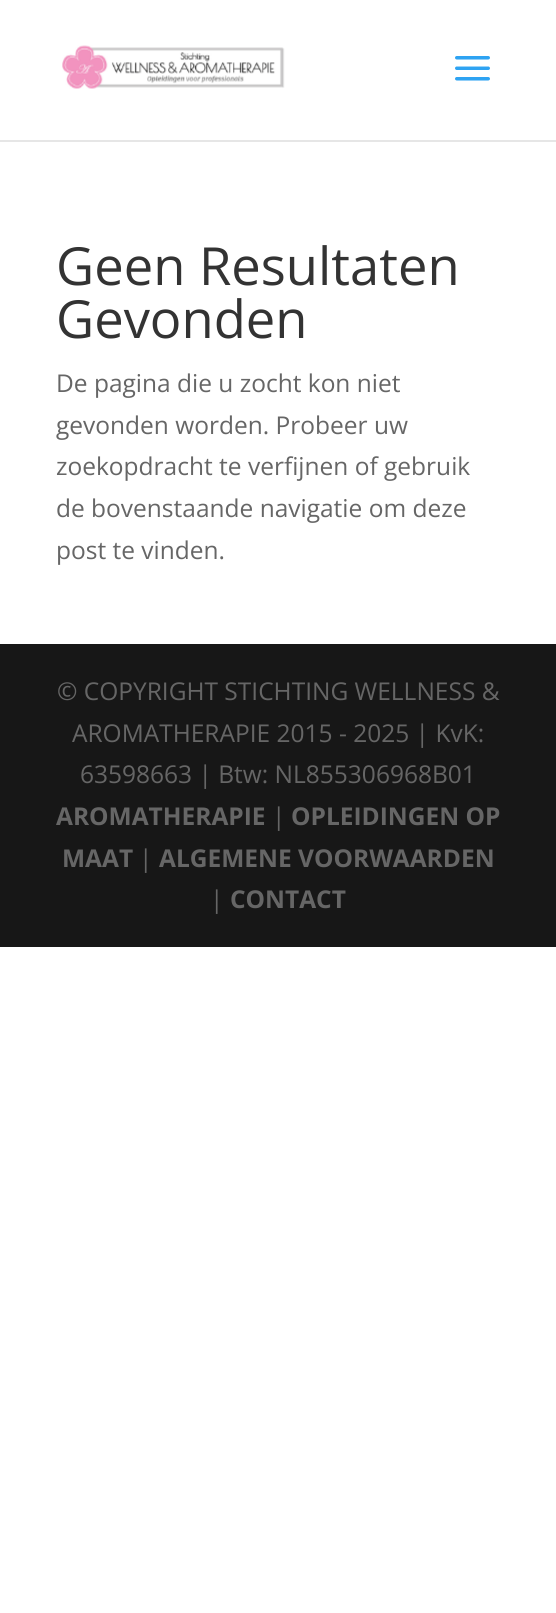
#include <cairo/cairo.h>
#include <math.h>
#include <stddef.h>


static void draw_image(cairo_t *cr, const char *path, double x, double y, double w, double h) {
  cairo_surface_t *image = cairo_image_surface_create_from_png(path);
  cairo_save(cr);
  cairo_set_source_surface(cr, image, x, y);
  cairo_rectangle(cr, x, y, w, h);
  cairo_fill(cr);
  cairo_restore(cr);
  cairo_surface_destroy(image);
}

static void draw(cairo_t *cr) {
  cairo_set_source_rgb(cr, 1, 1, 1);
  cairo_paint(cr);
  cairo_set_source_rgb(cr, 230 / 255.0, 230 / 255.0, 230 / 255.0);
  cairo_new_path(cr);
  cairo_move_to(cr, 0, 140);
  cairo_line_to(cr, 0, 142);
  cairo_line_to(cr, 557, 142);
  cairo_line_to(cr, 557, 2);
  cairo_line_to(cr, 556, 2);
  cairo_line_to(cr, 556, 140);
  cairo_close_path(cr);
  cairo_fill(cr);
  draw_image(cr, "images/1.png", 62, 45, 223, 44);
  draw_image(cr, "images/2.png", 455, 56, 35, 25);
  cairo_set_source_rgb(cr, 23 / 255.0, 23 / 255.0, 23 / 255.0);
  cairo_rectangle(cr, 0, 644, 556, 303);
  cairo_fill(cr);
  cairo_select_font_face(cr, "Open Sans", CAIRO_FONT_SLANT_NORMAL, CAIRO_FONT_WEIGHT_NORMAL);
  cairo_set_font_size(cr, 52.5);
  cairo_set_source_rgb(cr, 51 / 255.0, 51 / 255.0, 51 / 255.0);
  cairo_move_to(cr, 56, 285);
  cairo_show_text(cr, "Geen Resultaten");
  cairo_move_to(cr, 56, 338);
  cairo_show_text(cr, "Gevonden");
  cairo_set_font_size(cr, 24.5);
  cairo_set_source_rgb(cr, 102 / 255.0, 102 / 255.0, 102 / 255.0);
  cairo_move_to(cr, 56, 392);
  cairo_show_text(cr, "De pagina die u zocht kon niet");
  cairo_move_to(cr, 56, 434);
  cairo_show_text(cr, "gevonden worden. Probeer uw");
  cairo_move_to(cr, 56, 475);
  cairo_show_text(cr, "zoekopdracht te verfijnen of gebruik");
  cairo_move_to(cr, 56, 517);
  cairo_show_text(cr, "de bovenstaande navigatie om deze");
  cairo_move_to(cr, 56, 559);
  cairo_show_text(cr, "post te vinden.");
  cairo_move_to(cr, 57, 700);
  cairo_show_text(cr, "© COPYRIGHT STICHTING WELLNESS &");
  cairo_move_to(cr, 72, 742);
  cairo_show_text(cr, "AROMATHERAPIE 2015 - 2025 | KvK:");
  cairo_move_to(cr, 80, 783);
  cairo_show_text(cr, "63598663 | Btw: NL855306968B01");
  cairo_select_font_face(cr, "Open Sans", CAIRO_FONT_SLANT_NORMAL, CAIRO_FONT_WEIGHT_BOLD);
  cairo_move_to(cr, 56, 825);
  cairo_show_text(cr, "AROMATHERAPIE");
  cairo_select_font_face(cr, "Open Sans", CAIRO_FONT_SLANT_NORMAL, CAIRO_FONT_WEIGHT_NORMAL);
  cairo_move_to(cr, 272, 825);
  cairo_show_text(cr, "|");
  cairo_select_font_face(cr, "Open Sans", CAIRO_FONT_SLANT_NORMAL, CAIRO_FONT_WEIGHT_BOLD);
  cairo_move_to(cr, 291, 825);
  cairo_show_text(cr, "OPLEIDINGEN OP");
  cairo_move_to(cr, 62, 867);
  cairo_show_text(cr, "MAAT");
  cairo_select_font_face(cr, "Open Sans", CAIRO_FONT_SLANT_NORMAL, CAIRO_FONT_WEIGHT_NORMAL);
  cairo_move_to(cr, 139, 867);
  cairo_show_text(cr, "|");
  cairo_select_font_face(cr, "Open Sans", CAIRO_FONT_SLANT_NORMAL, CAIRO_FONT_WEIGHT_BOLD);
  cairo_move_to(cr, 159, 867);
  cairo_show_text(cr, "ALGEMENE VOORWAARDEN");
  cairo_select_font_face(cr, "Open Sans", CAIRO_FONT_SLANT_NORMAL, CAIRO_FONT_WEIGHT_NORMAL);
  cairo_move_to(cr, 210, 908);
  cairo_show_text(cr, "|");
  cairo_select_font_face(cr, "Open Sans", CAIRO_FONT_SLANT_NORMAL, CAIRO_FONT_WEIGHT_BOLD);
  cairo_move_to(cr, 230, 908);
  cairo_show_text(cr, "CONTACT");
}

int main(void) {
  cairo_surface_t *surface = cairo_image_surface_create(CAIRO_FORMAT_RGB24, 556, 1613);
  cairo_t *cr = cairo_create(surface);
  cairo_font_options_t *options = cairo_font_options_create();
  cairo_font_options_set_hint_metrics(options, CAIRO_HINT_METRICS_OFF);
  cairo_font_options_set_hint_style(options, CAIRO_HINT_STYLE_NONE);
  cairo_set_font_options(cr, options);
  cairo_set_miter_limit(cr, 4);
  draw(cr);
  cairo_surface_write_to_png(surface, "out.png");
  cairo_font_options_destroy(options);
  cairo_destroy(cr);
  cairo_surface_destroy(surface);
  return 0;
}
